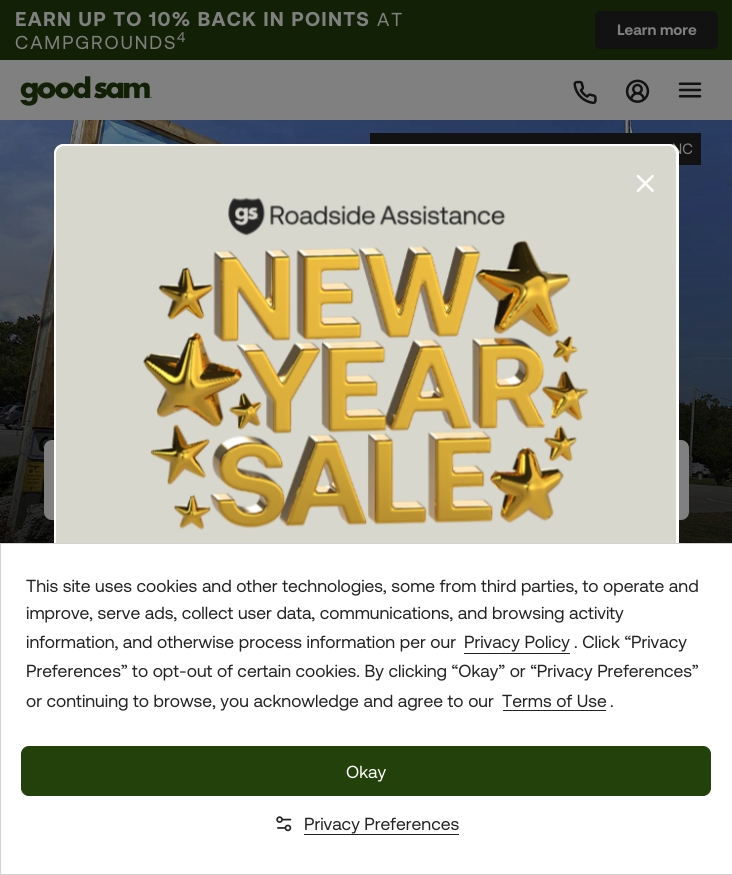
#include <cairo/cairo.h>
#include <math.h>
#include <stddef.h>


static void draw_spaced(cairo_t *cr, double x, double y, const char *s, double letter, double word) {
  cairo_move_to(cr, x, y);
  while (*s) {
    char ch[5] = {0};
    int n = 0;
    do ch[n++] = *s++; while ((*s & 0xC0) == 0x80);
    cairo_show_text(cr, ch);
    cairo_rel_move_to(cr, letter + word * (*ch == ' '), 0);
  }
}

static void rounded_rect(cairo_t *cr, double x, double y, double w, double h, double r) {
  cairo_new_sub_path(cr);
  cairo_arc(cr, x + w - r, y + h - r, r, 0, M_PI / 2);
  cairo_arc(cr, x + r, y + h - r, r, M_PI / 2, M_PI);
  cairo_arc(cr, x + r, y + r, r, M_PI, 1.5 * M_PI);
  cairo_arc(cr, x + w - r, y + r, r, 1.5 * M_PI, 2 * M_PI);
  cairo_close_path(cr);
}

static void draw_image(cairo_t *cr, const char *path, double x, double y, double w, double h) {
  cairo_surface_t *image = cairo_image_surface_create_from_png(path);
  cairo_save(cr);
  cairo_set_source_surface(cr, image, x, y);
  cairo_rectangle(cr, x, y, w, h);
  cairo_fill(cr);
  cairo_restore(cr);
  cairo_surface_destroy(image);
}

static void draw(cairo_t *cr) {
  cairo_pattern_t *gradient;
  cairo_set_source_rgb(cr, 128 / 255.0, 128 / 255.0, 128 / 255.0);
  cairo_paint(cr);
  cairo_set_source_rgb(cr, 18 / 255.0, 33 / 255.0, 5 / 255.0);
  cairo_rectangle(cr, 0, 0, 732, 60);
  cairo_fill(cr);
  cairo_set_source_rgb(cr, 18 / 255.0, 18 / 255.0, 18 / 255.0);
  rounded_rect(cr, 595.5, 11.5, 122, 37, 4.5);
  cairo_fill_preserve(cr);
  cairo_set_line_width(cr, 1);
  cairo_stroke(cr);
  draw_image(cr, "images/1.png", 20, 76, 132, 30);
  draw_image(cr, "images/2.png", 573, 80, 24, 25);
  draw_image(cr, "images/3.png", 625, 79, 25, 24);
  draw_image(cr, "images/4.png", 678, 82, 24, 16);
  draw_image(cr, "images/7.png", 0, 120, 732, 423);
  gradient = cairo_pattern_create_linear(366, 120, 366, 599);
  cairo_pattern_add_color_stop_rgba(gradient, 0, 0, 0, 0, 0);
  cairo_pattern_add_color_stop_rgba(gradient, 1, 0, 0, 0, 0.8);
  cairo_pattern_add_color_stop_rgba(gradient, 1, 0, 0, 0, 0);
  cairo_set_source(cr, gradient);
  cairo_pattern_destroy(gradient);
  cairo_rectangle(cr, 0, 133, 732, 410);
  cairo_fill(cr);
  cairo_set_source_rgb(cr, 18 / 255.0, 18 / 255.0, 18 / 255.0);
  cairo_rectangle(cr, 370, 133, 331, 32);
  cairo_fill(cr);
  cairo_set_source_rgb(cr, 128 / 255.0, 128 / 255.0, 128 / 255.0);
  rounded_rect(cr, 44, 440, 645, 80, 8);
  cairo_fill(cr);
  cairo_select_font_face(cr, "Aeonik", CAIRO_FONT_SLANT_NORMAL, CAIRO_FONT_WEIGHT_BOLD);
  cairo_set_font_size(cr, 20);
  draw_spaced(cr, 15, 26, "EARN UP TO 10% BACK IN POINTS", 1.25, 0);
  cairo_select_font_face(cr, "Aeonik", CAIRO_FONT_SLANT_NORMAL, CAIRO_FONT_WEIGHT_NORMAL);
  cairo_set_font_size(cr, 18.75);
  draw_spaced(cr, 377, 26, "AT", 1.9, 0);
  draw_spaced(cr, 15, 49, "CAMPGROUNDS", 1.9, 0);
  cairo_set_font_size(cr, 14);
  draw_spaced(cr, 177, 42, "4", 1.9, 0);
  cairo_select_font_face(cr, "Aeonik", CAIRO_FONT_SLANT_NORMAL, CAIRO_FONT_WEIGHT_BOLD);
  cairo_set_font_size(cr, 15);
  cairo_move_to(cr, 617, 35);
  cairo_show_text(cr, "Learn more");
  cairo_select_font_face(cr, "Aeonik", CAIRO_FONT_SLANT_NORMAL, CAIRO_FONT_WEIGHT_NORMAL);
  cairo_move_to(cr, 672, 154);
  cairo_show_text(cr, "NC");
  cairo_set_source_rgb(cr, 215 / 255.0, 215 / 255.0, 205 / 255.0);
  cairo_new_path(cr);
  cairo_move_to(cr, 64, 144);
  cairo_line_to(cr, 669, 144);
  cairo_curve_to(cr, 674.5, 144, 679, 148.5, 679, 154);
  cairo_line_to(cr, 679, 553);
  cairo_line_to(cr, 54, 553);
  cairo_line_to(cr, 54, 154);
  cairo_curve_to(cr, 54, 148.5, 58.5, 144, 64, 144);
  cairo_close_path(cr);
  cairo_fill(cr);
  cairo_set_source_rgb(cr, 1, 1, 1);
  cairo_set_fill_rule(cr, CAIRO_FILL_RULE_EVEN_ODD);
  cairo_new_path(cr);
  cairo_move_to(cr, 64, 144);
  cairo_line_to(cr, 669, 144);
  cairo_curve_to(cr, 674, 144, 679, 148, 679, 154);
  cairo_line_to(cr, 679, 552);
  cairo_line_to(cr, 54, 552);
  cairo_line_to(cr, 54, 154);
  cairo_curve_to(cr, 54, 148, 58, 144, 64, 144);
  cairo_close_path(cr);
  cairo_move_to(cr, 64, 146);
  cairo_line_to(cr, 669, 146);
  cairo_curve_to(cr, 673, 146, 676, 150, 676, 154);
  cairo_line_to(cr, 676, 552);
  cairo_line_to(cr, 56, 552);
  cairo_line_to(cr, 56, 154);
  cairo_curve_to(cr, 56, 150, 60, 146, 64, 146);
  cairo_close_path(cr);
  cairo_fill(cr);
  draw_image(cr, "images/5.png", 636, 174, 18, 18);
  draw_image(cr, "images/6.png", 143, 197, 446, 333);
  cairo_rectangle(cr, 0.5, 543.5, 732, 331);
  cairo_fill_preserve(cr);
  cairo_set_source_rgb(cr, 209 / 255.0, 209 / 255.0, 209 / 255.0);
  cairo_stroke(cr);
  cairo_set_font_size(cr, 17.5);
  cairo_set_source_rgb(cr, 35 / 255.0, 35 / 255.0, 35 / 255.0);
  cairo_move_to(cr, 26, 592);
  cairo_show_text(cr, "This site uses cookies and other technologies, some from third parties, to operate and");
  cairo_move_to(cr, 26, 619);
  cairo_show_text(cr, "improve, serve ads, collect user data, communications, and browsing activity");
  cairo_move_to(cr, 26, 648);
  cairo_show_text(cr, "information, and otherwise process information per our");
  cairo_move_to(cr, 464, 648);
  cairo_show_text(cr, "Privacy Policy");
  cairo_rectangle(cr, 464, 653, 106, 1);
  cairo_fill(cr);
  cairo_move_to(cr, 574, 648);
  cairo_show_text(cr, ". Click “Privacy");
  cairo_move_to(cr, 26, 677);
  cairo_show_text(cr, "Preferences” to opt-out of certain cookies. By clicking “Okay” or “Privacy Preferences”");
  cairo_move_to(cr, 26, 707);
  cairo_show_text(cr, "or continuing to browse, you acknowledge and agree to our");
  cairo_move_to(cr, 502, 707);
  cairo_show_text(cr, "Terms of Use");
  cairo_rectangle(cr, 503, 710, 103, 1);
  cairo_fill(cr);
  cairo_move_to(cr, 610, 707);
  cairo_show_text(cr, ".");
  cairo_set_source_rgb(cr, 35 / 255.0, 65 / 255.0, 10 / 255.0);
  rounded_rect(cr, 21.5, 746.5, 689, 49, 7.5);
  cairo_fill_preserve(cr);
  cairo_stroke(cr);
  cairo_set_source_rgb(cr, 1, 1, 1);
  cairo_move_to(cr, 346, 778);
  cairo_show_text(cr, "Okay");
  draw_image(cr, "images/8.png", 276, 816, 16, 16);
  cairo_set_source_rgb(cr, 35 / 255.0, 35 / 255.0, 35 / 255.0);
  cairo_move_to(cr, 304, 830);
  cairo_show_text(cr, "Privacy Preferences");
  cairo_rectangle(cr, 304, 834, 155, 1);
  cairo_fill(cr);
}

int main(void) {
  cairo_surface_t *surface = cairo_image_surface_create(CAIRO_FORMAT_RGB24, 732, 875);
  cairo_t *cr = cairo_create(surface);
  cairo_font_options_t *options = cairo_font_options_create();
  cairo_font_options_set_hint_metrics(options, CAIRO_HINT_METRICS_OFF);
  cairo_font_options_set_hint_style(options, CAIRO_HINT_STYLE_NONE);
  cairo_set_font_options(cr, options);
  cairo_set_miter_limit(cr, 4);
  draw(cr);
  cairo_surface_write_to_png(surface, "out.png");
  cairo_font_options_destroy(options);
  cairo_destroy(cr);
  cairo_surface_destroy(surface);
  return 0;
}
